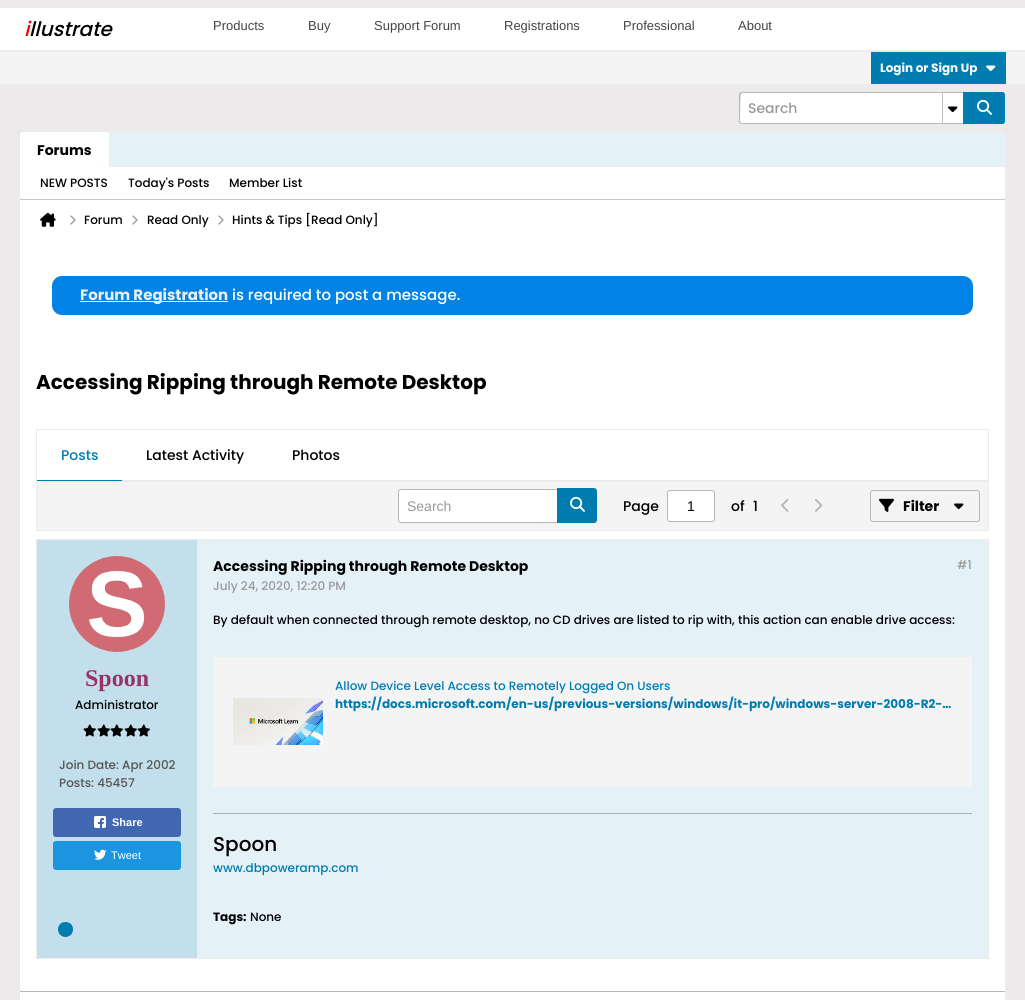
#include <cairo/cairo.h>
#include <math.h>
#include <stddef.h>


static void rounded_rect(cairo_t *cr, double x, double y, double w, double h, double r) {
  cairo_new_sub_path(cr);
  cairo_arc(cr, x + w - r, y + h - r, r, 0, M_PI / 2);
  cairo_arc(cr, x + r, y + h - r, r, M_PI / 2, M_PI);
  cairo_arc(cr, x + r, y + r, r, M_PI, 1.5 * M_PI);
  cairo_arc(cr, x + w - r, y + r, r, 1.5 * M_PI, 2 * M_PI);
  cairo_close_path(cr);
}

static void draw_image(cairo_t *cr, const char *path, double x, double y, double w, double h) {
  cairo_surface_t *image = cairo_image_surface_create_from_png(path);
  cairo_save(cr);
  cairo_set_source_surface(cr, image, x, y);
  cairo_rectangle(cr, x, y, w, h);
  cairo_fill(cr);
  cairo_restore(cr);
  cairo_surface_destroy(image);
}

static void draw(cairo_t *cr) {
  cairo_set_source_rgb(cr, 236 / 255.0, 234 / 255.0, 234 / 255.0);
  cairo_paint(cr);
  cairo_set_source_rgb(cr, 1, 1, 1);
  cairo_rectangle(cr, 0, 8, 1025, 42);
  cairo_fill(cr);
  cairo_set_source_rgb(cr, 245 / 255.0, 244 / 255.0, 244 / 255.0);
  cairo_rectangle(cr, 0, 52, 1025, 32);
  cairo_fill(cr);
  cairo_set_source_rgb(cr, 0, 124 / 255.0, 176 / 255.0);
  cairo_rectangle(cr, 871, 52, 135, 32);
  cairo_fill(cr);
  draw_image(cr, "images/1.png", 986, 65, 10, 7);
  cairo_set_source_rgb(cr, 1, 1, 1);
  cairo_new_path(cr);
  cairo_move_to(cr, 742, 92);
  cairo_line_to(cr, 963, 92);
  cairo_line_to(cr, 963, 124);
  cairo_line_to(cr, 742, 124);
  cairo_curve_to(cr, 740.5, 124, 739, 122.5, 739, 121);
  cairo_line_to(cr, 739, 95);
  cairo_curve_to(cr, 739, 93.5, 740.5, 92, 742, 92);
  cairo_close_path(cr);
  cairo_fill(cr);
  cairo_set_source_rgb(cr, 183 / 255.0, 183 / 255.0, 183 / 255.0);
  cairo_set_fill_rule(cr, CAIRO_FILL_RULE_EVEN_ODD);
  cairo_new_path(cr);
  cairo_move_to(cr, 742, 92);
  cairo_line_to(cr, 963, 92);
  cairo_line_to(cr, 963, 124);
  cairo_line_to(cr, 742, 124);
  cairo_curve_to(cr, 740, 124, 739, 123, 739, 121);
  cairo_line_to(cr, 739, 95);
  cairo_curve_to(cr, 739, 93, 740, 92, 742, 92);
  cairo_close_path(cr);
  cairo_move_to(cr, 742, 93);
  cairo_line_to(cr, 963, 93);
  cairo_line_to(cr, 963, 123);
  cairo_line_to(cr, 741, 123);
  cairo_line_to(cr, 740, 121);
  cairo_curve_to(cr, 740, 119, 740, 94, 741, 94);
  cairo_close_path(cr);
  cairo_fill(cr);
  cairo_set_source_rgb(cr, 189 / 255.0, 189 / 255.0, 189 / 255.0);
  cairo_rectangle(cr, 942, 92, 1, 32);
  cairo_fill(cr);
  draw_image(cr, "images/2.png", 948, 106, 10, 7);
  cairo_set_source_rgb(cr, 0, 124 / 255.0, 176 / 255.0);
  cairo_new_path(cr);
  cairo_move_to(cr, 963.5, 92.5);
  cairo_line_to(cr, 1002, 92.5);
  cairo_curve_to(cr, 1003.5, 92.5, 1004.5, 93.5, 1004.5, 95);
  cairo_line_to(cr, 1004.5, 121);
  cairo_curve_to(cr, 1004.5, 122.5, 1003.5, 123.5, 1002, 123.5);
  cairo_line_to(cr, 963.5, 123.5);
  cairo_close_path(cr);
  cairo_fill_preserve(cr);
  cairo_set_line_width(cr, 1);
  cairo_stroke(cr);
  draw_image(cr, "images/3.png", 977, 99, 15, 16);
  cairo_set_source_rgb(cr, 228 / 255.0, 241 / 255.0, 246 / 255.0);
  cairo_new_path(cr);
  cairo_move_to(cr, 23, 132);
  cairo_line_to(cr, 1002, 132);
  cairo_curve_to(cr, 1003.5, 132, 1005, 133.5, 1005, 135);
  cairo_line_to(cr, 1005, 167);
  cairo_line_to(cr, 20, 167);
  cairo_line_to(cr, 20, 135);
  cairo_curve_to(cr, 20, 133.5, 21.5, 132, 23, 132);
  cairo_close_path(cr);
  cairo_fill(cr);
  cairo_set_source_rgb(cr, 1, 1, 1);
  cairo_new_path(cr);
  cairo_move_to(cr, 23, 132);
  cairo_line_to(cr, 106, 132);
  cairo_curve_to(cr, 107.5, 132, 109, 133.5, 109, 135);
  cairo_line_to(cr, 109, 167);
  cairo_line_to(cr, 20, 167);
  cairo_line_to(cr, 20, 135);
  cairo_curve_to(cr, 20, 133.5, 21.5, 132, 23, 132);
  cairo_close_path(cr);
  cairo_fill(cr);
  cairo_rectangle(cr, 20, 167, 985, 32);
  cairo_fill(cr);
  cairo_set_source_rgb(cr, 199 / 255.0, 199 / 255.0, 200 / 255.0);
  cairo_rectangle(cr, 20, 199, 985, 1);
  cairo_fill(cr);
  cairo_set_source_rgb(cr, 1, 1, 1);
  cairo_rectangle(cr, 20, 200, 985, 791);
  cairo_fill(cr);
  draw_image(cr, "images/4.png", 40, 212, 16, 15);
  draw_image(cr, "images/5.png", 70, 215, 6, 10);
  draw_image(cr, "images/5.png", 132, 215, 6, 10);
  draw_image(cr, "images/5.png", 218, 215, 6, 10);
  cairo_set_source_rgb(cr, 1 / 255.0, 130 / 255.0, 229 / 255.0);
  rounded_rect(cr, 52, 276, 921, 39, 10);
  cairo_fill(cr);
  cairo_set_source_rgb(cr, 238 / 255.0, 238 / 255.0, 238 / 255.0);
  cairo_rectangle(cr, 80, 301, 148, 1);
  cairo_fill(cr);
  cairo_set_source_rgb(cr, 236 / 255.0, 234 / 255.0, 234 / 255.0);
  cairo_rectangle(cr, 36, 429, 953, 1);
  cairo_fill(cr);
  cairo_rectangle(cr, 988, 429, 1, 53);
  cairo_fill(cr);
  cairo_rectangle(cr, 122, 480, 867, 1);
  cairo_fill(cr);
  cairo_rectangle(cr, 36, 429, 1, 53);
  cairo_fill(cr);
  cairo_set_source_rgb(cr, 0, 124 / 255.0, 176 / 255.0);
  cairo_rectangle(cr, 37, 480, 85, 1);
  cairo_fill(cr);
  cairo_set_source_rgb(cr, 245 / 255.0, 244 / 255.0, 244 / 255.0);
  cairo_rectangle(cr, 36.5, 481.5, 952, 49);
  cairo_fill_preserve(cr);
  cairo_set_source_rgb(cr, 236 / 255.0, 234 / 255.0, 234 / 255.0);
  cairo_stroke(cr);
  cairo_set_source_rgb(cr, 1, 1, 1);
  rounded_rect(cr, 398.5, 489.5, 198, 33, 2.5);
  cairo_fill_preserve(cr);
  cairo_set_source_rgb(cr, 183 / 255.0, 183 / 255.0, 183 / 255.0);
  cairo_stroke(cr);
  cairo_set_source_rgb(cr, 0, 124 / 255.0, 176 / 255.0);
  cairo_new_path(cr);
  cairo_move_to(cr, 557, 488);
  cairo_line_to(cr, 594, 488);
  cairo_curve_to(cr, 595.5, 488, 597, 489.5, 597, 491);
  cairo_line_to(cr, 597, 520);
  cairo_curve_to(cr, 597, 521.5, 595.5, 523, 594, 523);
  cairo_line_to(cr, 557, 523);
  cairo_close_path(cr);
  cairo_fill(cr);
  draw_image(cr, "images/3.png", 570, 496, 15, 16);
  cairo_set_source_rgb(cr, 1, 1, 1);
  rounded_rect(cr, 667.5, 490.5, 47, 31, 2.5);
  cairo_fill_preserve(cr);
  cairo_set_source_rgb(cr, 183 / 255.0, 183 / 255.0, 183 / 255.0);
  cairo_stroke(cr);
  draw_image(cr, "images/6.png", 781, 498, 8, 14);
  draw_image(cr, "images/7.png", 815, 498, 8, 14);
  rounded_rect(cr, 870.5, 490.5, 109, 31, 2.5);
  cairo_stroke(cr);
  draw_image(cr, "images/8.png", 879, 498, 15, 14);
  draw_image(cr, "images/9.png", 954, 503, 10, 7);
  cairo_set_source_rgb(cr, 194 / 255.0, 223 / 255.0, 235 / 255.0);
  cairo_rectangle(cr, 37, 540, 160, 418);
  cairo_fill(cr);
  cairo_rectangle(cr, 36.5, 539.5, 952, 419);
  cairo_set_source_rgb(cr, 236 / 255.0, 234 / 255.0, 234 / 255.0);
  cairo_stroke(cr);
  draw_image(cr, "images/10.png", 69, 556, 96, 96);
  draw_image(cr, "images/11.png", 83, 724, 13, 13);
  draw_image(cr, "images/11.png", 97, 724, 13, 13);
  draw_image(cr, "images/11.png", 110, 724, 13, 13);
  draw_image(cr, "images/11.png", 124, 724, 13, 13);
  draw_image(cr, "images/11.png", 137, 724, 13, 13);
  cairo_set_source_rgb(cr, 66 / 255.0, 103 / 255.0, 178 / 255.0);
  rounded_rect(cr, 53, 808, 128, 29, 3);
  cairo_fill(cr);
  draw_image(cr, "images/12.png", 94, 816, 12, 12);
  cairo_set_source_rgb(cr, 27 / 255.0, 149 / 255.0, 224 / 255.0);
  rounded_rect(cr, 53, 841, 128, 29, 3);
  cairo_fill(cr);
  draw_image(cr, "images/13.png", 94, 849, 13, 11);
  cairo_set_source_rgb(cr, 0, 124 / 255.0, 176 / 255.0);
  cairo_set_fill_rule(cr, CAIRO_FILL_RULE_WINDING);
  cairo_new_path(cr);
  cairo_move_to(cr, 65.5, 937);
  cairo_curve_to(cr, 75.5, 936.5, 75.5, 922, 65.5, 922);
  cairo_curve_to(cr, 55.5, 922, 55.5, 936.5, 65.5, 937);
  cairo_close_path(cr);
  cairo_fill(cr);
  cairo_set_source_rgb(cr, 228 / 255.0, 241 / 255.0, 246 / 255.0);
  cairo_rectangle(cr, 197, 540, 791, 418);
  cairo_fill(cr);
  cairo_set_source_rgb(cr, 245 / 255.0, 244 / 255.0, 244 / 255.0);
  cairo_rectangle(cr, 213, 657, 759, 130);
  cairo_fill(cr);
  draw_image(cr, "images/14.png", 233, 698, 90, 47);
  cairo_set_source_rgb(cr, 171 / 255.0, 174 / 255.0, 176 / 255.0);
  cairo_rectangle(cr, 213, 813, 759, 1);
  cairo_fill(cr);
  cairo_set_source_rgb(cr, 1, 1, 1);
  cairo_rectangle(cr, 20, 992, 985, 8);
  cairo_fill(cr);
  cairo_set_source_rgb(cr, 183 / 255.0, 183 / 255.0, 183 / 255.0);
  cairo_rectangle(cr, 20, 991, 985, 1);
  cairo_fill(cr);
  cairo_select_font_face(cr, "Poppins Medium", CAIRO_FONT_SLANT_ITALIC, CAIRO_FONT_WEIGHT_NORMAL);
  cairo_set_font_size(cr, 20);
  cairo_set_source_rgb(cr, 1, 0, 0);
  cairo_move_to(cr, 24, 36);
  cairo_show_text(cr, "i");
  cairo_set_source_rgb(cr, 0, 0, 0);
  cairo_move_to(cr, 29, 36);
  cairo_show_text(cr, "llustrate");
  cairo_select_font_face(cr, "Liberation Sans", CAIRO_FONT_SLANT_NORMAL, CAIRO_FONT_WEIGHT_NORMAL);
  cairo_set_font_size(cr, 13);
  cairo_set_source_rgb(cr, 68 / 255.0, 68 / 255.0, 68 / 255.0);
  cairo_move_to(cr, 213, 30);
  cairo_show_text(cr, "Products");
  cairo_move_to(cr, 308, 30);
  cairo_show_text(cr, "Buy");
  cairo_move_to(cr, 374, 30);
  cairo_show_text(cr, "Support Forum");
  cairo_move_to(cr, 504, 30);
  cairo_show_text(cr, "Registrations");
  cairo_move_to(cr, 623, 30);
  cairo_show_text(cr, "Professional");
  cairo_move_to(cr, 738, 30);
  cairo_show_text(cr, "About");
  cairo_select_font_face(cr, "Poppins", CAIRO_FONT_SLANT_NORMAL, CAIRO_FONT_WEIGHT_BOLD);
  cairo_set_font_size(cr, 12);
  cairo_set_source_rgb(cr, 1, 1, 1);
  cairo_move_to(cr, 880, 72);
  cairo_show_text(cr, "Login or Sign Up");
  cairo_select_font_face(cr, "Poppins Medium", CAIRO_FONT_SLANT_NORMAL, CAIRO_FONT_WEIGHT_NORMAL);
  cairo_set_font_size(cr, 14);
  cairo_set_source_rgb(cr, 153 / 255.0, 153 / 255.0, 153 / 255.0);
  cairo_move_to(cr, 748, 113);
  cairo_show_text(cr, "Search");
  cairo_select_font_face(cr, "Poppins", CAIRO_FONT_SLANT_NORMAL, CAIRO_FONT_WEIGHT_BOLD);
  cairo_set_source_rgb(cr, 0, 0, 0);
  cairo_move_to(cr, 37, 155);
  cairo_show_text(cr, "Forums");
  cairo_select_font_face(cr, "Poppins Medium", CAIRO_FONT_SLANT_NORMAL, CAIRO_FONT_WEIGHT_NORMAL);
  cairo_set_font_size(cr, 12);
  cairo_move_to(cr, 40, 187);
  cairo_show_text(cr, "NEW POSTS");
  cairo_move_to(cr, 128, 187);
  cairo_show_text(cr, "Today's Posts");
  cairo_move_to(cr, 229, 187);
  cairo_show_text(cr, "Member List");
  cairo_move_to(cr, 84, 224);
  cairo_show_text(cr, "Forum");
  cairo_move_to(cr, 147, 224);
  cairo_show_text(cr, "Read Only");
  cairo_move_to(cr, 232, 224);
  cairo_show_text(cr, "Hints & Tips [Read Only]");
  cairo_select_font_face(cr, "Poppins", CAIRO_FONT_SLANT_NORMAL, CAIRO_FONT_WEIGHT_BOLD);
  cairo_set_font_size(cr, 15);
  cairo_set_source_rgb(cr, 238 / 255.0, 238 / 255.0, 238 / 255.0);
  cairo_move_to(cr, 80, 300);
  cairo_show_text(cr, "Forum Registration");
  cairo_select_font_face(cr, "Poppins Medium", CAIRO_FONT_SLANT_NORMAL, CAIRO_FONT_WEIGHT_NORMAL);
  cairo_set_source_rgb(cr, 1, 1, 1);
  cairo_move_to(cr, 232, 300);
  cairo_show_text(cr, "is required to post a message.");
  cairo_select_font_face(cr, "Poppins", CAIRO_FONT_SLANT_NORMAL, CAIRO_FONT_WEIGHT_BOLD);
  cairo_set_font_size(cr, 20);
  cairo_set_source_rgb(cr, 0, 0, 0);
  cairo_move_to(cr, 36, 389);
  cairo_show_text(cr, "Accessing Ripping through Remote Desktop");
  cairo_select_font_face(cr, "Poppins Medium", CAIRO_FONT_SLANT_NORMAL, CAIRO_FONT_WEIGHT_NORMAL);
  cairo_set_font_size(cr, 14);
  cairo_set_source_rgb(cr, 0, 124 / 255.0, 176 / 255.0);
  cairo_move_to(cr, 61, 460);
  cairo_show_text(cr, "Posts");
  cairo_set_source_rgb(cr, 0, 0, 0);
  cairo_move_to(cr, 146, 460);
  cairo_show_text(cr, "Latest Activity");
  cairo_move_to(cr, 292, 460);
  cairo_show_text(cr, "Photos");
  cairo_select_font_face(cr, "Liberation Sans", CAIRO_FONT_SLANT_NORMAL, CAIRO_FONT_WEIGHT_NORMAL);
  cairo_set_source_rgb(cr, 153 / 255.0, 153 / 255.0, 153 / 255.0);
  cairo_move_to(cr, 407, 511);
  cairo_show_text(cr, "Search");
  cairo_select_font_face(cr, "Poppins Medium", CAIRO_FONT_SLANT_NORMAL, CAIRO_FONT_WEIGHT_NORMAL);
  cairo_set_source_rgb(cr, 0, 0, 0);
  cairo_move_to(cr, 623, 511);
  cairo_show_text(cr, "Page");
  cairo_select_font_face(cr, "Liberation Sans", CAIRO_FONT_SLANT_NORMAL, CAIRO_FONT_WEIGHT_NORMAL);
  cairo_move_to(cr, 687, 511);
  cairo_show_text(cr, "1");
  cairo_select_font_face(cr, "Poppins Medium", CAIRO_FONT_SLANT_NORMAL, CAIRO_FONT_WEIGHT_NORMAL);
  cairo_move_to(cr, 731, 511);
  cairo_show_text(cr, "of");
  cairo_move_to(cr, 753, 511);
  cairo_show_text(cr, "1");
  cairo_select_font_face(cr, "Poppins", CAIRO_FONT_SLANT_NORMAL, CAIRO_FONT_WEIGHT_BOLD);
  cairo_move_to(cr, 903, 511);
  cairo_show_text(cr, "Filter");
  cairo_select_font_face(cr, "Liberation Serif", CAIRO_FONT_SLANT_NORMAL, CAIRO_FONT_WEIGHT_BOLD);
  cairo_set_font_size(cr, 24);
  cairo_set_source_rgb(cr, 153 / 255.0, 51 / 255.0, 102 / 255.0);
  cairo_move_to(cr, 85, 686);
  cairo_show_text(cr, "Spoon");
  cairo_select_font_face(cr, "Poppins Medium", CAIRO_FONT_SLANT_NORMAL, CAIRO_FONT_WEIGHT_NORMAL);
  cairo_set_font_size(cr, 12);
  cairo_set_source_rgb(cr, 0, 0, 0);
  cairo_move_to(cr, 75, 709);
  cairo_show_text(cr, "Administrator");
  cairo_set_source_rgb(cr, 85 / 255.0, 85 / 255.0, 85 / 255.0);
  cairo_move_to(cr, 59, 769);
  cairo_show_text(cr, "Join Date: Apr 2002");
  cairo_move_to(cr, 59, 787);
  cairo_show_text(cr, "Posts: 45457");
  cairo_select_font_face(cr, "Liberation Sans", CAIRO_FONT_SLANT_NORMAL, CAIRO_FONT_WEIGHT_BOLD);
  cairo_set_font_size(cr, 11);
  cairo_set_source_rgb(cr, 1, 1, 1);
  cairo_move_to(cr, 112, 826);
  cairo_show_text(cr, "Share");
  cairo_select_font_face(cr, "Liberation Sans", CAIRO_FONT_SLANT_NORMAL, CAIRO_FONT_WEIGHT_NORMAL);
  cairo_move_to(cr, 111, 859);
  cairo_show_text(cr, "Tweet");
  cairo_select_font_face(cr, "Poppins", CAIRO_FONT_SLANT_NORMAL, CAIRO_FONT_WEIGHT_BOLD);
  cairo_set_font_size(cr, 14);
  cairo_set_source_rgb(cr, 0, 0, 0);
  cairo_move_to(cr, 213, 571);
  cairo_show_text(cr, "Accessing Ripping through Remote Desktop");
  cairo_select_font_face(cr, "Poppins Medium", CAIRO_FONT_SLANT_NORMAL, CAIRO_FONT_WEIGHT_NORMAL);
  cairo_set_font_size(cr, 12);
  cairo_set_source_rgb(cr, 153 / 255.0, 153 / 255.0, 153 / 255.0);
  cairo_move_to(cr, 213, 590);
  cairo_show_text(cr, "July 24, 2020, 12:20 PM");
  cairo_move_to(cr, 957, 569);
  cairo_show_text(cr, "#1");
  cairo_set_source_rgb(cr, 0, 0, 0);
  cairo_move_to(cr, 213, 624);
  cairo_show_text(cr, "By default when connected through remote desktop, no CD drives are listed to rip with, this action can enable drive access:");
  cairo_set_source_rgb(cr, 0, 124 / 255.0, 176 / 255.0);
  cairo_move_to(cr, 335, 690);
  cairo_show_text(cr, "Allow Device Level Access to Remotely Logged On Users");
  cairo_select_font_face(cr, "Poppins", CAIRO_FONT_SLANT_NORMAL, CAIRO_FONT_WEIGHT_BOLD);
  cairo_move_to(cr, 335, 708);
  cairo_show_text(cr, "https://docs.microsoft.com/en-us/previous-versions/windows/it-pro/windows-server-2008-R2-…");
  cairo_select_font_face(cr, "Poppins Medium", CAIRO_FONT_SLANT_NORMAL, CAIRO_FONT_WEIGHT_NORMAL);
  cairo_set_font_size(cr, 20);
  cairo_set_source_rgb(cr, 0, 0, 0);
  cairo_move_to(cr, 213, 851);
  cairo_show_text(cr, "Spoon");
  cairo_set_font_size(cr, 12);
  cairo_set_source_rgb(cr, 0, 124 / 255.0, 176 / 255.0);
  cairo_move_to(cr, 213, 872);
  cairo_show_text(cr, "www.dbpoweramp.com");
  cairo_select_font_face(cr, "Poppins", CAIRO_FONT_SLANT_NORMAL, CAIRO_FONT_WEIGHT_BOLD);
  cairo_set_source_rgb(cr, 0, 0, 0);
  cairo_move_to(cr, 213, 921);
  cairo_show_text(cr, "Tags:");
  cairo_select_font_face(cr, "Poppins Medium", CAIRO_FONT_SLANT_NORMAL, CAIRO_FONT_WEIGHT_NORMAL);
  cairo_move_to(cr, 250, 921);
  cairo_show_text(cr, "None");
}

int main(void) {
  cairo_surface_t *surface = cairo_image_surface_create(CAIRO_FORMAT_RGB24, 1025, 1000);
  cairo_t *cr = cairo_create(surface);
  cairo_font_options_t *options = cairo_font_options_create();
  cairo_font_options_set_hint_metrics(options, CAIRO_HINT_METRICS_OFF);
  cairo_font_options_set_hint_style(options, CAIRO_HINT_STYLE_NONE);
  cairo_set_font_options(cr, options);
  cairo_set_miter_limit(cr, 4);
  draw(cr);
  cairo_surface_write_to_png(surface, "out.png");
  cairo_font_options_destroy(options);
  cairo_destroy(cr);
  cairo_surface_destroy(surface);
  return 0;
}
